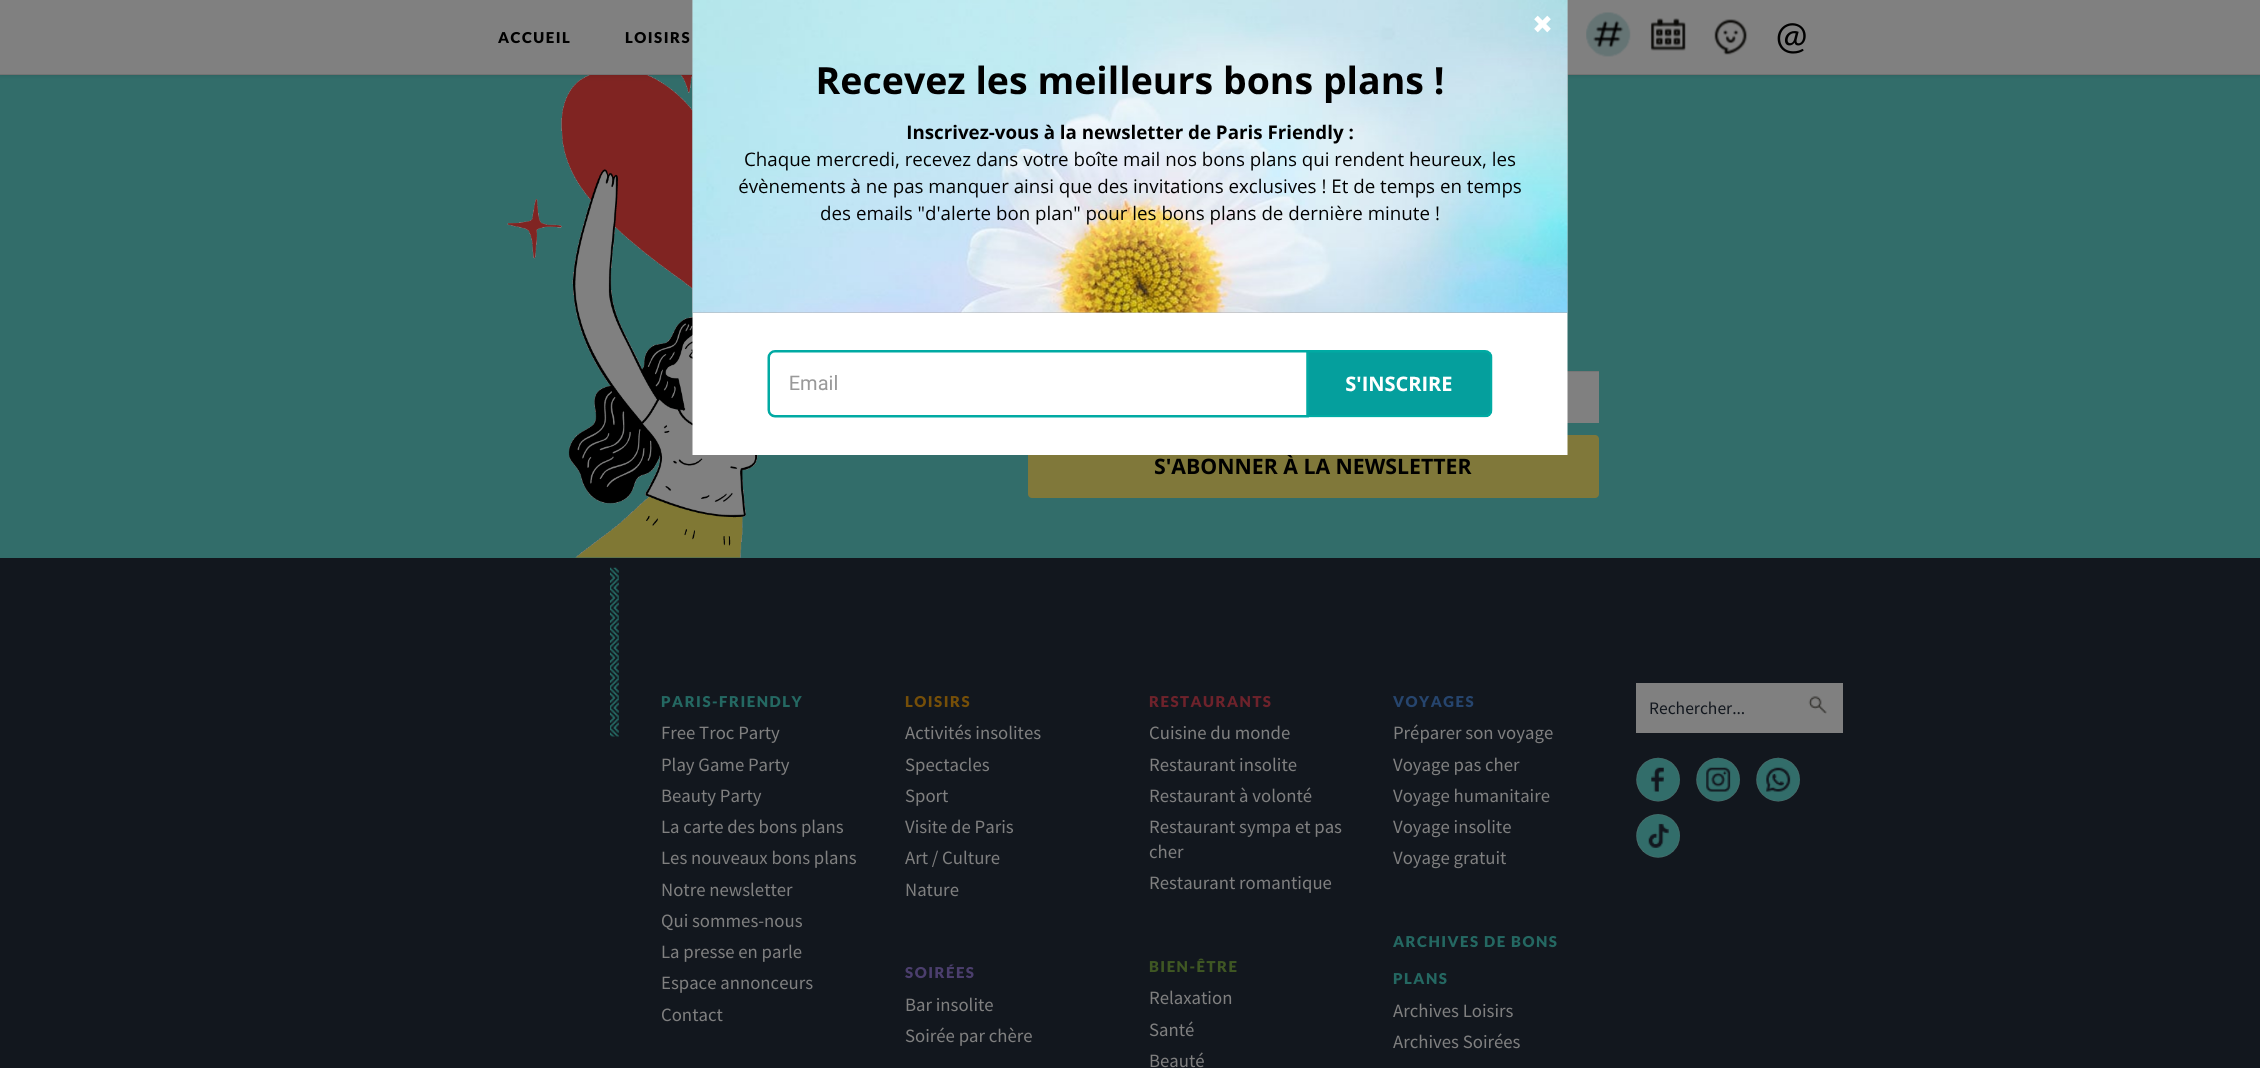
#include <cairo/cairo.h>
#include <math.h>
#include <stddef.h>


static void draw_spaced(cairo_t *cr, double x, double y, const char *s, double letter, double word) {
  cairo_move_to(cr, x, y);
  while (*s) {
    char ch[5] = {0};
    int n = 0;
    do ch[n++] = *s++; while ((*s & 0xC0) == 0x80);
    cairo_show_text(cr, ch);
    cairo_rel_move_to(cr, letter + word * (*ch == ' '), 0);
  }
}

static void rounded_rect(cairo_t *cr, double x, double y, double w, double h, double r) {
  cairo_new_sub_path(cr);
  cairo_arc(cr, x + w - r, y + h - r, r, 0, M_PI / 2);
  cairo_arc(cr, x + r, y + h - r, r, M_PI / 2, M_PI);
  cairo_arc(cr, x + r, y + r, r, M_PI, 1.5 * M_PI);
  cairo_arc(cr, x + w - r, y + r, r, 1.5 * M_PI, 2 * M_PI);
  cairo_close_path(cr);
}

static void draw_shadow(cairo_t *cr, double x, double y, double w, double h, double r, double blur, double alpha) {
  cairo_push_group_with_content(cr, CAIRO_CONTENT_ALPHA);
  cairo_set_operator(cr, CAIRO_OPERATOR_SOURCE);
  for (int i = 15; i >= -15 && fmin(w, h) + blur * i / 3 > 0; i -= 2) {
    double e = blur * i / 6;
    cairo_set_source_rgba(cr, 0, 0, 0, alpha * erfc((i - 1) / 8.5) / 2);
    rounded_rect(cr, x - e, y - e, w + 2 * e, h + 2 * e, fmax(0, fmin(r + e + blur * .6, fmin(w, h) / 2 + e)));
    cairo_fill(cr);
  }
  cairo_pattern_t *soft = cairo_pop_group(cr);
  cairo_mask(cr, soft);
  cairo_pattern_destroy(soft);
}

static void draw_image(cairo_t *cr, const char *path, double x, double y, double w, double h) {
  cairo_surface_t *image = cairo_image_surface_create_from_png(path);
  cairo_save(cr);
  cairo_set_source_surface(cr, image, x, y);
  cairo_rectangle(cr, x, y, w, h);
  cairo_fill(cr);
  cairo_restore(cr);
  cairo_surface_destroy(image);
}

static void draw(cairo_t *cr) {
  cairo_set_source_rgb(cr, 50 / 255.0, 109 / 255.0, 106 / 255.0);
  cairo_paint(cr);
  draw_image(cr, "images/5.png", 507, 75, 251, 483);
  cairo_set_source_rgb(cr, 0, 0, 0);
  draw_shadow(cr, 0, -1, 2260, 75, 0, 3, 0.2);
  cairo_set_source_rgb(cr, 128 / 255.0, 128 / 255.0, 128 / 255.0);
  cairo_rectangle(cr, 0, 0, 2260, 74);
  cairo_fill(cr);
  cairo_set_source_rgb(cr, 115 / 255.0, 115 / 255.0, 115 / 255.0);
  cairo_rectangle(cr, 0, 74, 2260, 1);
  cairo_fill(cr);
  draw_image(cr, "images/2.png", 1586, 12, 45, 45);
  draw_image(cr, "images/3.png", 1650, 18, 36, 33);
  draw_image(cr, "images/4.png", 1714, 19, 34, 36);
  cairo_set_source_rgb(cr, 128 / 255.0, 128 / 255.0, 128 / 255.0);
  cairo_rectangle(cr, 1567, 372, 32, 51);
  cairo_fill(cr);
  cairo_set_source_rgb(cr, 118 / 255.0, 118 / 255.0, 118 / 255.0);
  cairo_rectangle(cr, 1567, 371, 32, 1);
  cairo_fill(cr);
  cairo_set_source_rgb(cr, 128 / 255.0, 120 / 255.0, 58 / 255.0);
  rounded_rect(cr, 1028, 435, 571, 63, 4);
  cairo_fill(cr);
  cairo_set_source_rgb(cr, 18 / 255.0, 23 / 255.0, 30 / 255.0);
  cairo_rectangle(cr, 0, 558, 2260, 510);
  cairo_fill(cr);
  draw_image(cr, "images/6.png", 610, 567, 9, 170);
  cairo_set_source_rgb(cr, 128 / 255.0, 128 / 255.0, 128 / 255.0);
  cairo_rectangle(cr, 1636, 683, 207, 50);
  cairo_fill(cr);
  draw_image(cr, "images/7.png", 1808, 696, 19, 18);
  draw_image(cr, "images/8.png", 1636, 757, 44, 45);
  draw_image(cr, "images/9.png", 1696, 757, 44, 45);
  draw_image(cr, "images/10.png", 1756, 757, 44, 45);
  draw_image(cr, "images/11.png", 1636, 814, 44, 44);
  cairo_select_font_face(cr, "Lato Black", CAIRO_FONT_SLANT_NORMAL, CAIRO_FONT_WEIGHT_NORMAL);
  cairo_set_font_size(cr, 15);
  cairo_set_source_rgb(cr, 0, 0, 0);
  draw_spaced(cr, 498, 43, "ACCUEIL", 1.5, 0);
  draw_spaced(cr, 625, 43, "LOISIRS", 1.5, 0);
  cairo_select_font_face(cr, "Lato", CAIRO_FONT_SLANT_NORMAL, CAIRO_FONT_WEIGHT_NORMAL);
  cairo_set_font_size(cr, 38);
  draw_spaced(cr, 1776, 49, "@", 1.5, 0);
  cairo_select_font_face(cr, "Open Sans", CAIRO_FONT_SLANT_NORMAL, CAIRO_FONT_WEIGHT_BOLD);
  cairo_set_font_size(cr, 21.25);
  cairo_move_to(cr, 1154, 474);
  cairo_show_text(cr, "S'ABONNER À LA NEWSLETTER");
  draw_image(cr, "images/1.png", 692, 0, 876, 455);
  cairo_select_font_face(cr, "Lato Black", CAIRO_FONT_SLANT_NORMAL, CAIRO_FONT_WEIGHT_NORMAL);
  cairo_set_font_size(cr, 15);
  cairo_set_source_rgb(cr, 36 / 255.0, 104 / 255.0, 98 / 255.0);
  draw_spaced(cr, 661, 707, "PARIS-FRIENDLY", 1.5, 0);
  cairo_select_font_face(cr, "Source Sans Pro", CAIRO_FONT_SLANT_NORMAL, CAIRO_FONT_WEIGHT_NORMAL);
  cairo_set_font_size(cr, 18.75);
  cairo_set_source_rgb(cr, 128 / 255.0, 128 / 255.0, 128 / 255.0);
  cairo_move_to(cr, 661, 739);
  cairo_show_text(cr, "Free Troc Party");
  cairo_move_to(cr, 661, 771);
  cairo_show_text(cr, "Play Game Party");
  cairo_move_to(cr, 661, 802);
  cairo_show_text(cr, "Beauty Party");
  cairo_move_to(cr, 661, 833);
  cairo_show_text(cr, "La carte des bons plans");
  cairo_move_to(cr, 661, 864);
  cairo_show_text(cr, "Les nouveaux bons plans");
  cairo_move_to(cr, 661, 896);
  cairo_show_text(cr, "Notre newsletter");
  cairo_move_to(cr, 661, 927);
  cairo_show_text(cr, "Qui sommes-nous");
  cairo_move_to(cr, 661, 958);
  cairo_show_text(cr, "La presse en parle");
  cairo_move_to(cr, 661, 989);
  cairo_show_text(cr, "Espace annonceurs");
  cairo_move_to(cr, 661, 1021);
  cairo_show_text(cr, "Contact");
  cairo_select_font_face(cr, "Lato Black", CAIRO_FONT_SLANT_NORMAL, CAIRO_FONT_WEIGHT_NORMAL);
  cairo_set_font_size(cr, 15);
  cairo_set_source_rgb(cr, 118 / 255.0, 79 / 255.0, 8 / 255.0);
  draw_spaced(cr, 905, 707, "LOISIRS", 1.5, 0);
  cairo_select_font_face(cr, "Source Sans Pro", CAIRO_FONT_SLANT_NORMAL, CAIRO_FONT_WEIGHT_NORMAL);
  cairo_set_font_size(cr, 18.75);
  cairo_set_source_rgb(cr, 128 / 255.0, 128 / 255.0, 128 / 255.0);
  cairo_move_to(cr, 905, 739);
  cairo_show_text(cr, "Activités insolites");
  cairo_move_to(cr, 905, 771);
  cairo_show_text(cr, "Spectacles");
  cairo_move_to(cr, 905, 802);
  cairo_show_text(cr, "Sport");
  cairo_move_to(cr, 905, 833);
  cairo_show_text(cr, "Visite de Paris");
  cairo_move_to(cr, 905, 864);
  cairo_show_text(cr, "Art / Culture");
  cairo_move_to(cr, 905, 896);
  cairo_show_text(cr, "Nature");
  cairo_select_font_face(cr, "Lato Black", CAIRO_FONT_SLANT_NORMAL, CAIRO_FONT_WEIGHT_NORMAL);
  cairo_set_font_size(cr, 15);
  cairo_set_source_rgb(cr, 75 / 255.0, 62 / 255.0, 109 / 255.0);
  draw_spaced(cr, 905, 978, "SOIRÉES", 1.5, 0);
  cairo_select_font_face(cr, "Source Sans Pro", CAIRO_FONT_SLANT_NORMAL, CAIRO_FONT_WEIGHT_NORMAL);
  cairo_set_font_size(cr, 18.75);
  cairo_set_source_rgb(cr, 128 / 255.0, 128 / 255.0, 128 / 255.0);
  cairo_move_to(cr, 905, 1011);
  cairo_show_text(cr, "Bar insolite");
  cairo_move_to(cr, 905, 1042);
  cairo_show_text(cr, "Soirée par chère");
  cairo_select_font_face(cr, "Lato Black", CAIRO_FONT_SLANT_NORMAL, CAIRO_FONT_WEIGHT_NORMAL);
  cairo_set_font_size(cr, 15);
  cairo_set_source_rgb(cr, 110 / 255.0, 34 / 255.0, 43 / 255.0);
  draw_spaced(cr, 1149, 707, "RESTAURANTS", 1.5, 0);
  cairo_select_font_face(cr, "Source Sans Pro", CAIRO_FONT_SLANT_NORMAL, CAIRO_FONT_WEIGHT_NORMAL);
  cairo_set_font_size(cr, 18.75);
  cairo_set_source_rgb(cr, 128 / 255.0, 128 / 255.0, 128 / 255.0);
  cairo_move_to(cr, 1149, 739);
  cairo_show_text(cr, "Cuisine du monde");
  cairo_move_to(cr, 1149, 771);
  cairo_show_text(cr, "Restaurant insolite");
  cairo_move_to(cr, 1149, 802);
  cairo_show_text(cr, "Restaurant à volonté");
  cairo_move_to(cr, 1149, 833);
  cairo_show_text(cr, "Restaurant sympa et pas");
  cairo_move_to(cr, 1149, 858);
  cairo_show_text(cr, "cher");
  cairo_move_to(cr, 1149, 889);
  cairo_show_text(cr, "Restaurant romantique");
  cairo_select_font_face(cr, "Lato Black", CAIRO_FONT_SLANT_NORMAL, CAIRO_FONT_WEIGHT_NORMAL);
  cairo_set_font_size(cr, 15);
  cairo_set_source_rgb(cr, 63 / 255.0, 87 / 255.0, 35 / 255.0);
  draw_spaced(cr, 1149, 972, "BIEN-ÊTRE", 1.5, 0);
  cairo_select_font_face(cr, "Source Sans Pro", CAIRO_FONT_SLANT_NORMAL, CAIRO_FONT_WEIGHT_NORMAL);
  cairo_set_font_size(cr, 18.75);
  cairo_set_source_rgb(cr, 128 / 255.0, 128 / 255.0, 128 / 255.0);
  cairo_move_to(cr, 1149, 1004);
  cairo_show_text(cr, "Relaxation");
  cairo_move_to(cr, 1149, 1036);
  cairo_show_text(cr, "Santé");
  cairo_move_to(cr, 1149, 1067);
  cairo_show_text(cr, "Beauté");
  cairo_select_font_face(cr, "Lato Black", CAIRO_FONT_SLANT_NORMAL, CAIRO_FONT_WEIGHT_NORMAL);
  cairo_set_font_size(cr, 15);
  cairo_set_source_rgb(cr, 38 / 255.0, 69 / 255.0, 110 / 255.0);
  draw_spaced(cr, 1393, 707, "VOYAGES", 1.5, 0);
  cairo_select_font_face(cr, "Source Sans Pro", CAIRO_FONT_SLANT_NORMAL, CAIRO_FONT_WEIGHT_NORMAL);
  cairo_set_font_size(cr, 18.75);
  cairo_set_source_rgb(cr, 128 / 255.0, 128 / 255.0, 128 / 255.0);
  cairo_move_to(cr, 1393, 739);
  cairo_show_text(cr, "Préparer son voyage");
  cairo_move_to(cr, 1393, 771);
  cairo_show_text(cr, "Voyage pas cher");
  cairo_move_to(cr, 1393, 802);
  cairo_show_text(cr, "Voyage humanitaire");
  cairo_move_to(cr, 1393, 833);
  cairo_show_text(cr, "Voyage insolite");
  cairo_move_to(cr, 1393, 864);
  cairo_show_text(cr, "Voyage gratuit");
  cairo_select_font_face(cr, "Lato Black", CAIRO_FONT_SLANT_NORMAL, CAIRO_FONT_WEIGHT_NORMAL);
  cairo_set_font_size(cr, 15);
  cairo_set_source_rgb(cr, 36 / 255.0, 104 / 255.0, 98 / 255.0);
  draw_spaced(cr, 1393, 947, "ARCHIVES DE BONS", 1.5, 0);
  draw_spaced(cr, 1393, 984, "PLANS", 1.5, 0);
  cairo_select_font_face(cr, "Source Sans Pro", CAIRO_FONT_SLANT_NORMAL, CAIRO_FONT_WEIGHT_NORMAL);
  cairo_set_font_size(cr, 18.75);
  cairo_set_source_rgb(cr, 128 / 255.0, 128 / 255.0, 128 / 255.0);
  cairo_move_to(cr, 1393, 1017);
  cairo_show_text(cr, "Archives Loisirs");
  cairo_move_to(cr, 1393, 1048);
  cairo_show_text(cr, "Archives Soirées");
  cairo_set_font_size(cr, 17.5);
  cairo_set_source_rgb(cr, 18 / 255.0, 23 / 255.0, 30 / 255.0);
  cairo_move_to(cr, 1649, 714);
  cairo_show_text(cr, "Rechercher...");
}

int main(void) {
  cairo_surface_t *surface = cairo_image_surface_create(CAIRO_FORMAT_RGB24, 2260, 1068);
  cairo_t *cr = cairo_create(surface);
  cairo_font_options_t *options = cairo_font_options_create();
  cairo_font_options_set_hint_metrics(options, CAIRO_HINT_METRICS_OFF);
  cairo_font_options_set_hint_style(options, CAIRO_HINT_STYLE_NONE);
  cairo_set_font_options(cr, options);
  cairo_set_miter_limit(cr, 4);
  draw(cr);
  cairo_surface_write_to_png(surface, "out.png");
  cairo_font_options_destroy(options);
  cairo_destroy(cr);
  cairo_surface_destroy(surface);
  return 0;
}
